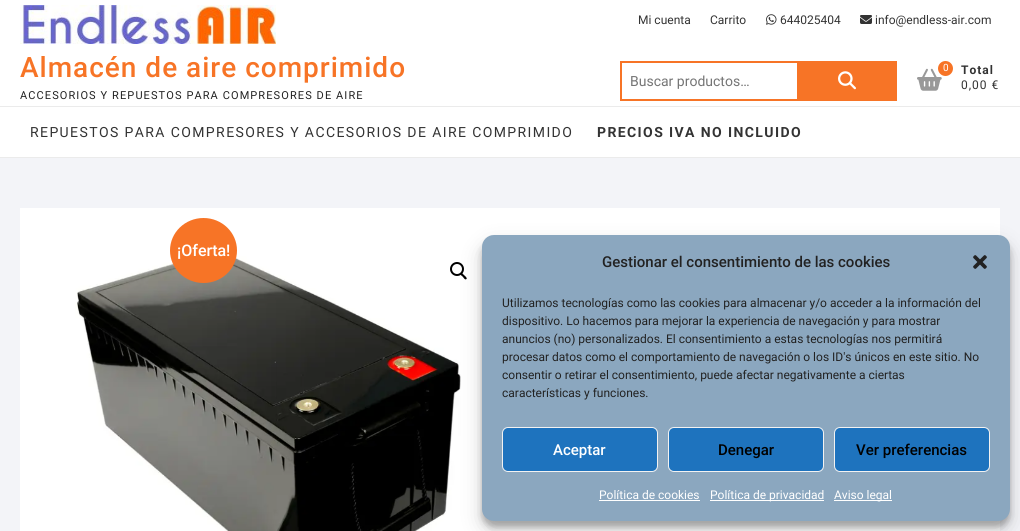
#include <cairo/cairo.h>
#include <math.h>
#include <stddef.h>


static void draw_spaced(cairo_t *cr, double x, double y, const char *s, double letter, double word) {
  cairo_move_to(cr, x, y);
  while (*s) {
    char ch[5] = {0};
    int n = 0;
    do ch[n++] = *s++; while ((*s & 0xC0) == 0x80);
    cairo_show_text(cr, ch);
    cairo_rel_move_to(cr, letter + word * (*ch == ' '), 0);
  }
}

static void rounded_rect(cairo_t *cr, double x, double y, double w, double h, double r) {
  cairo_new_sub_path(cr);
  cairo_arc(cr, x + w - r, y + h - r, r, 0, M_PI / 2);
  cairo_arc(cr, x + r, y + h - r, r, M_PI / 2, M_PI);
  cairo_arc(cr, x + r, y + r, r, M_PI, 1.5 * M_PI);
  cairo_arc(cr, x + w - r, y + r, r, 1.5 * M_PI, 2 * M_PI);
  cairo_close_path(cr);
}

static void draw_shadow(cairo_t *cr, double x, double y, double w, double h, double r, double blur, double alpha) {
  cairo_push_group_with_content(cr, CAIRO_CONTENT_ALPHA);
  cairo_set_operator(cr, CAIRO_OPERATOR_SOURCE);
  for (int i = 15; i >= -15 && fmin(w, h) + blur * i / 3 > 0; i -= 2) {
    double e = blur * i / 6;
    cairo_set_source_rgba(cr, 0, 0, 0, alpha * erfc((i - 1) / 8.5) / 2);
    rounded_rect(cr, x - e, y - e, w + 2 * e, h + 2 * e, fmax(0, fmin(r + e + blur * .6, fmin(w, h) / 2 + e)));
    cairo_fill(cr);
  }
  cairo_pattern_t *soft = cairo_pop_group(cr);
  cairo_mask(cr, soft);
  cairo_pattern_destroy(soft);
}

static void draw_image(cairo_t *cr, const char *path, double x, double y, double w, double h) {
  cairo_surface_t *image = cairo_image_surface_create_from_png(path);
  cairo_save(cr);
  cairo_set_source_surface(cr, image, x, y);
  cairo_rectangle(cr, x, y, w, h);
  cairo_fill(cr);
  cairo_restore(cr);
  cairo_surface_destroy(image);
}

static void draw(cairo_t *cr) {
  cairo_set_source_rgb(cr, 243 / 255.0, 244 / 255.0, 248 / 255.0);
  cairo_paint(cr);
  cairo_set_source_rgb(cr, 1, 1, 1);
  cairo_rectangle(cr, 0, 0, 1020, 157);
  cairo_fill(cr);
  draw_image(cr, "images/1.png", 20, 5, 256, 39);
  draw_image(cr, "images/2.png", 766, 14, 11, 11);
  draw_image(cr, "images/3.png", 860, 15, 12, 9);
  cairo_set_source_rgb(cr, 247 / 255.0, 116 / 255.0, 38 / 255.0);
  cairo_rectangle(cr, 620, 61, 177, 2);
  cairo_fill(cr);
  cairo_rectangle(cr, 620, 99, 177, 2);
  cairo_fill(cr);
  cairo_rectangle(cr, 620, 61, 2, 40);
  cairo_fill(cr);
  cairo_rectangle(cr, 797, 61, 100, 40);
  cairo_fill(cr);
  draw_image(cr, "images/4.png", 838, 71, 18, 19);
  draw_image(cr, "images/5.png", 917, 68, 25, 23);
  cairo_arc(cr, 945.5, 68.5, 7.5, 0, 2 * M_PI);
  cairo_fill(cr);
  cairo_set_source_rgb(cr, 235 / 255.0, 235 / 255.0, 235 / 255.0);
  cairo_rectangle(cr, 0, 106, 1020, 1);
  cairo_fill(cr);
  cairo_rectangle(cr, 0, 157, 1020, 1);
  cairo_fill(cr);
  cairo_set_source_rgb(cr, 1, 1, 1);
  cairo_rectangle(cr, 20, 208, 980, 323);
  cairo_fill(cr);
  draw_image(cr, "images/6.png", 75, 250, 386, 281);
  cairo_set_source_rgb(cr, 247 / 255.0, 116 / 255.0, 38 / 255.0);
  cairo_new_path(cr);
  cairo_move_to(cr, 203.5, 218);
  cairo_curve_to(cr, 222, 218, 237, 232.5, 237, 250.5);
  cairo_curve_to(cr, 237, 268.5, 222, 283, 203.5, 283);
  cairo_curve_to(cr, 185, 283, 170, 268.5, 170, 250.5);
  cairo_curve_to(cr, 170, 232.5, 185, 218, 203.5, 218);
  cairo_close_path(cr);
  cairo_fill(cr);
  cairo_arc(cr, 457, 269, 6, 0, 2 * M_PI);
  cairo_set_source_rgb(cr, 0, 0, 0);
  cairo_stroke(cr);
  cairo_new_path(cr);
  cairo_move_to(cr, 461, 273.5);
  cairo_curve_to(cr, 462, 272, 463.5, 275, 464.5, 275.5);
  cairo_curve_to(cr, 465, 276, 467.5, 278, 466.5, 279);
  cairo_curve_to(cr, 465, 280.5, 463.5, 277.5, 463, 277);
  cairo_curve_to(cr, 462.5, 276.5, 459.5, 274.5, 461, 273.5);
  cairo_close_path(cr);
  cairo_fill(cr);
  cairo_set_source_rgb(cr, 0, 0, 0);
  draw_shadow(cr, 482, 241, 528, 286, 12, 3, 0.23);
  draw_shadow(cr, 482, 245, 528, 286, 12, 10, 0.19);
  cairo_set_source_rgb(cr, 139 / 255.0, 167 / 255.0, 191 / 255.0);
  rounded_rect(cr, 482, 235, 528, 286, 12);
  cairo_fill(cr);
  draw_image(cr, "images/7.png", 973, 255, 14, 14);
  cairo_set_source_rgb(cr, 30 / 255.0, 115 / 255.0, 190 / 255.0);
  rounded_rect(cr, 502.5, 427.5, 155, 44, 5.5);
  cairo_fill_preserve(cr);
  cairo_set_source_rgb(cr, 242 / 255.0, 242 / 255.0, 242 / 255.0);
  cairo_set_line_width(cr, 1);
  cairo_stroke(cr);
  cairo_set_source_rgb(cr, 30 / 255.0, 115 / 255.0, 190 / 255.0);
  rounded_rect(cr, 668.5, 427.5, 155, 44, 5.5);
  cairo_fill_preserve(cr);
  cairo_set_source_rgb(cr, 242 / 255.0, 242 / 255.0, 242 / 255.0);
  cairo_stroke(cr);
  cairo_set_source_rgb(cr, 30 / 255.0, 115 / 255.0, 190 / 255.0);
  rounded_rect(cr, 834.5, 427.5, 155, 44, 5.5);
  cairo_fill_preserve(cr);
  cairo_set_source_rgb(cr, 242 / 255.0, 242 / 255.0, 242 / 255.0);
  cairo_stroke(cr);
  cairo_set_source_rgb(cr, 1, 1, 1);
  cairo_rectangle(cr, 599, 500, 101, 1);
  cairo_fill(cr);
  cairo_rectangle(cr, 710, 500, 114, 1);
  cairo_fill(cr);
  cairo_rectangle(cr, 834, 500, 58, 1);
  cairo_fill(cr);
  cairo_select_font_face(cr, "Roboto", CAIRO_FONT_SLANT_NORMAL, CAIRO_FONT_WEIGHT_NORMAL);
  cairo_set_font_size(cr, 12);
  cairo_set_source_rgb(cr, 51 / 255.0, 51 / 255.0, 51 / 255.0);
  cairo_move_to(cr, 638, 24);
  cairo_show_text(cr, "Mi cuenta");
  cairo_move_to(cr, 710, 24);
  cairo_show_text(cr, "Carrito");
  cairo_move_to(cr, 780, 24);
  cairo_show_text(cr, "644025404");
  cairo_move_to(cr, 875, 24);
  cairo_show_text(cr, "info@endless-air.com");
  cairo_select_font_face(cr, "Roboto Medium", CAIRO_FONT_SLANT_NORMAL, CAIRO_FONT_WEIGHT_NORMAL);
  cairo_set_font_size(cr, 28);
  cairo_set_source_rgb(cr, 247 / 255.0, 116 / 255.0, 38 / 255.0);
  draw_spaced(cr, 20, 77, "Almacén de aire comprimido", 1, 0);
  cairo_select_font_face(cr, "Roboto", CAIRO_FONT_SLANT_NORMAL, CAIRO_FONT_WEIGHT_NORMAL);
  cairo_set_font_size(cr, 11);
  cairo_set_source_rgb(cr, 34 / 255.0, 34 / 255.0, 34 / 255.0);
  draw_spaced(cr, 20, 99, "ACCESORIOS Y REPUESTOS PARA COMPRESORES DE AIRE", 1.1, 0);
  cairo_set_font_size(cr, 14);
  cairo_set_source_rgb(cr, 117 / 255.0, 117 / 255.0, 117 / 255.0);
  cairo_move_to(cr, 630, 86);
  cairo_show_text(cr, "Buscar productos…");
  cairo_set_font_size(cr, 10);
  cairo_set_source_rgb(cr, 1, 1, 1);
  cairo_move_to(cr, 943, 71);
  cairo_show_text(cr, "0");
  cairo_select_font_face(cr, "Roboto", CAIRO_FONT_SLANT_NORMAL, CAIRO_FONT_WEIGHT_BOLD);
  cairo_set_font_size(cr, 12);
  cairo_set_source_rgb(cr, 51 / 255.0, 51 / 255.0, 51 / 255.0);
  draw_spaced(cr, 961, 74, "Total", 1, 0);
  cairo_select_font_face(cr, "Roboto", CAIRO_FONT_SLANT_NORMAL, CAIRO_FONT_WEIGHT_NORMAL);
  draw_spaced(cr, 961, 89, "0,00 €", 1, 0);
  cairo_set_font_size(cr, 14);
  draw_spaced(cr, 30, 137, "REPUESTOS PARA COMPRESORES Y ACCESORIOS DE AIRE COMPRIMIDO", 1.4, 0);
  cairo_select_font_face(cr, "Roboto", CAIRO_FONT_SLANT_NORMAL, CAIRO_FONT_WEIGHT_BOLD);
  draw_spaced(cr, 597, 137, "PRECIOS IVA NO INCLUIDO", 1.4, 0);
  cairo_select_font_face(cr, "Roboto Medium", CAIRO_FONT_SLANT_NORMAL, CAIRO_FONT_WEIGHT_NORMAL);
  cairo_set_font_size(cr, 16);
  cairo_set_source_rgb(cr, 1, 1, 1);
  cairo_move_to(cr, 177, 256);
  cairo_show_text(cr, "¡Oferta!");
  cairo_set_font_size(cr, 15);
  cairo_set_source_rgb(cr, 34 / 255.0, 34 / 255.0, 34 / 255.0);
  cairo_move_to(cr, 602, 267);
  cairo_show_text(cr, "Gestionar el consentimiento de las cookies");
  cairo_select_font_face(cr, "Roboto", CAIRO_FONT_SLANT_NORMAL, CAIRO_FONT_WEIGHT_NORMAL);
  cairo_set_font_size(cr, 12);
  cairo_move_to(cr, 502, 307);
  cairo_show_text(cr, "Utilizamos tecnologías como las cookies para almacenar y/o acceder a la información del");
  cairo_move_to(cr, 502, 325);
  cairo_show_text(cr, "dispositivo. Lo hacemos para mejorar la experiencia de navegación y para mostrar");
  cairo_move_to(cr, 502, 343);
  cairo_show_text(cr, "anuncios (no) personalizados. El consentimiento a estas tecnologías nos permitirá");
  cairo_move_to(cr, 502, 361);
  cairo_show_text(cr, "procesar datos como el comportamiento de navegación o los ID's únicos en este sitio. No");
  cairo_move_to(cr, 502, 379);
  cairo_show_text(cr, "consentir o retirar el consentimiento, puede afectar negativamente a ciertas");
  cairo_move_to(cr, 502, 397);
  cairo_show_text(cr, "características y funciones.");
  cairo_select_font_face(cr, "Roboto Medium", CAIRO_FONT_SLANT_NORMAL, CAIRO_FONT_WEIGHT_NORMAL);
  cairo_set_font_size(cr, 15);
  cairo_set_source_rgb(cr, 1, 1, 1);
  cairo_move_to(cr, 553, 455);
  cairo_show_text(cr, "Aceptar");
  cairo_set_source_rgb(cr, 0, 0, 0);
  cairo_move_to(cr, 718, 455);
  cairo_show_text(cr, "Denegar");
  cairo_move_to(cr, 856, 455);
  cairo_show_text(cr, "Ver preferencias");
  cairo_select_font_face(cr, "Roboto", CAIRO_FONT_SLANT_NORMAL, CAIRO_FONT_WEIGHT_NORMAL);
  cairo_set_font_size(cr, 12);
  cairo_set_source_rgb(cr, 1, 1, 1);
  cairo_move_to(cr, 599, 499);
  cairo_show_text(cr, "Política de cookies");
  cairo_move_to(cr, 710, 499);
  cairo_show_text(cr, "Política de privacidad");
  cairo_move_to(cr, 834, 499);
  cairo_show_text(cr, "Aviso legal");
}

int main(void) {
  cairo_surface_t *surface = cairo_image_surface_create(CAIRO_FORMAT_RGB24, 1020, 531);
  cairo_t *cr = cairo_create(surface);
  cairo_font_options_t *options = cairo_font_options_create();
  cairo_font_options_set_hint_metrics(options, CAIRO_HINT_METRICS_OFF);
  cairo_font_options_set_hint_style(options, CAIRO_HINT_STYLE_NONE);
  cairo_set_font_options(cr, options);
  cairo_set_miter_limit(cr, 4);
  draw(cr);
  cairo_surface_write_to_png(surface, "out.png");
  cairo_font_options_destroy(options);
  cairo_destroy(cr);
  cairo_surface_destroy(surface);
  return 0;
}
